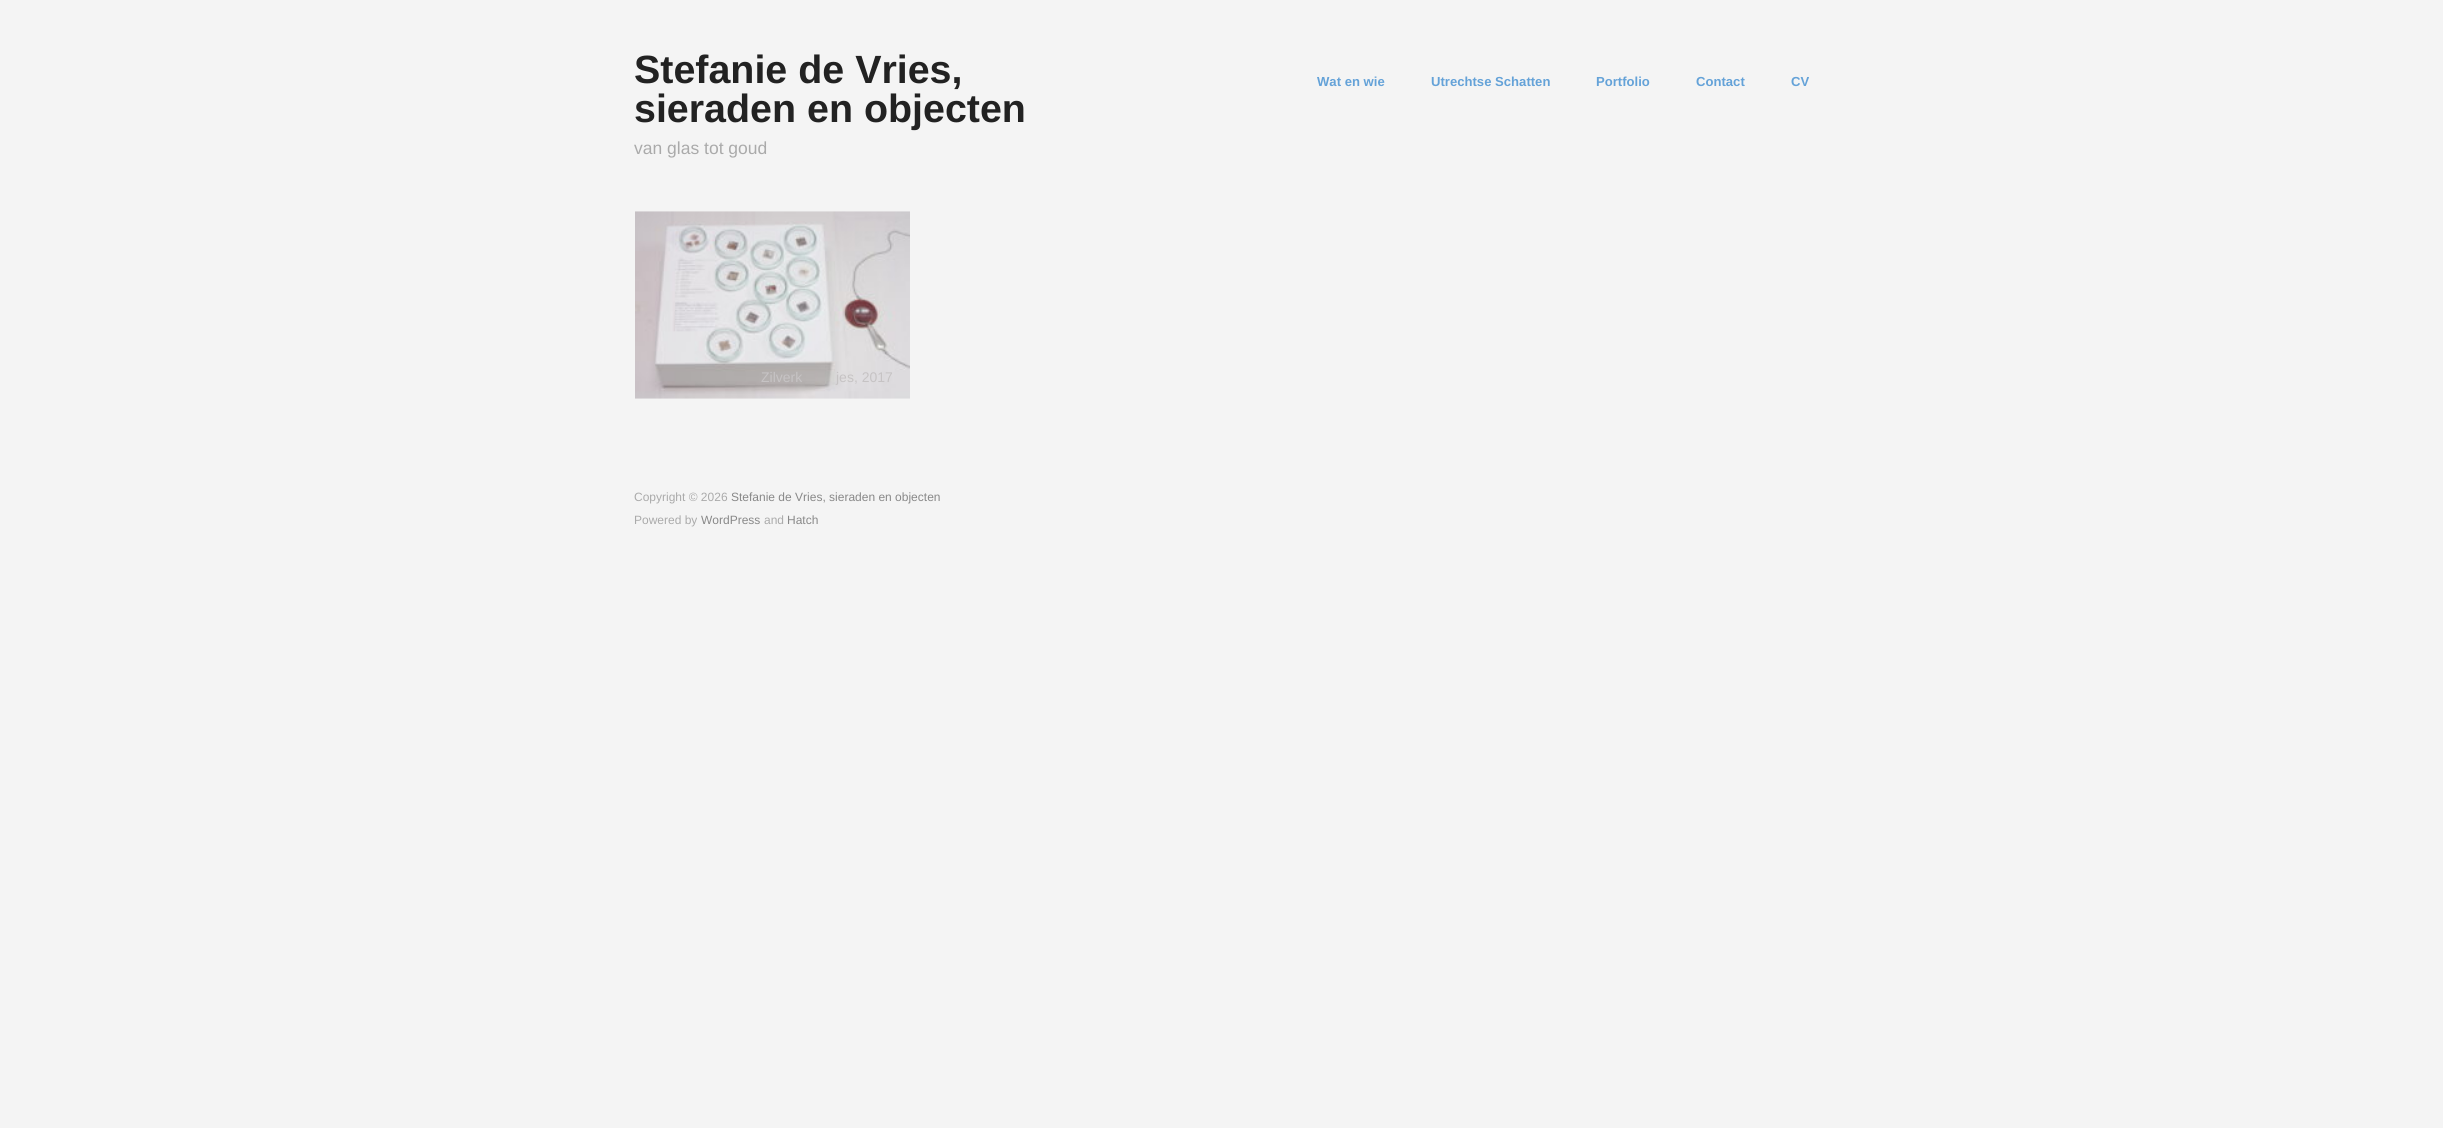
#include <cairo/cairo.h>
#include <math.h>
#include <stddef.h>


static void draw_image(cairo_t *cr, const char *path, double x, double y, double w, double h) {
  cairo_surface_t *image = cairo_image_surface_create_from_png(path);
  cairo_save(cr);
  cairo_set_source_surface(cr, image, x, y);
  cairo_rectangle(cr, x, y, w, h);
  cairo_fill(cr);
  cairo_restore(cr);
  cairo_surface_destroy(image);
}

static void draw(cairo_t *cr) {
  cairo_set_source_rgb(cr, 244 / 255.0, 244 / 255.0, 244 / 255.0);
  cairo_paint(cr);
  draw_image(cr, "images/1.png", 635, 211, 275, 188);
  cairo_select_font_face(cr, "Liberation Sans", CAIRO_FONT_SLANT_NORMAL, CAIRO_FONT_WEIGHT_BOLD);
  cairo_set_font_size(cr, 39.4);
  cairo_set_source_rgb(cr, 34 / 255.0, 34 / 255.0, 34 / 255.0);
  cairo_move_to(cr, 634, 83);
  cairo_show_text(cr, "Stefanie de Vries,");
  cairo_move_to(cr, 634, 122);
  cairo_show_text(cr, "sieraden en objecten");
  cairo_select_font_face(cr, "Liberation Sans", CAIRO_FONT_SLANT_NORMAL, CAIRO_FONT_WEIGHT_NORMAL);
  cairo_set_font_size(cr, 17.5);
  cairo_set_source_rgb(cr, 170 / 255.0, 170 / 255.0, 170 / 255.0);
  cairo_move_to(cr, 634, 154);
  cairo_show_text(cr, "van glas tot goud");
  cairo_select_font_face(cr, "Liberation Sans", CAIRO_FONT_SLANT_NORMAL, CAIRO_FONT_WEIGHT_BOLD);
  cairo_set_font_size(cr, 13.1);
  cairo_set_source_rgb(cr, 100 / 255.0, 162 / 255.0, 216 / 255.0);
  cairo_move_to(cr, 1317, 86);
  cairo_show_text(cr, "Wat en wie");
  cairo_move_to(cr, 1431, 86);
  cairo_show_text(cr, "Utrechtse Schatten");
  cairo_move_to(cr, 1596, 86);
  cairo_show_text(cr, "Portfolio");
  cairo_move_to(cr, 1696, 86);
  cairo_show_text(cr, "Contact");
  cairo_move_to(cr, 1791, 86);
  cairo_show_text(cr, "CV");
  cairo_select_font_face(cr, "Liberation Sans", CAIRO_FONT_SLANT_NORMAL, CAIRO_FONT_WEIGHT_NORMAL);
  cairo_set_font_size(cr, 14);
  cairo_set_source_rgb(cr, 198 / 255.0, 195 / 255.0, 196 / 255.0);
  cairo_move_to(cr, 761, 382);
  cairo_show_text(cr, "Zilverk");
  cairo_move_to(cr, 836, 382);
  cairo_show_text(cr, "jes, 2017");
  cairo_set_font_size(cr, 12);
  cairo_set_source_rgb(cr, 170 / 255.0, 170 / 255.0, 170 / 255.0);
  cairo_move_to(cr, 634, 501);
  cairo_show_text(cr, "Copyright © 2026");
  cairo_set_source_rgb(cr, 136 / 255.0, 136 / 255.0, 136 / 255.0);
  cairo_move_to(cr, 731, 501);
  cairo_show_text(cr, "Stefanie de Vries, sieraden en objecten");
  cairo_set_source_rgb(cr, 170 / 255.0, 170 / 255.0, 170 / 255.0);
  cairo_move_to(cr, 634, 524);
  cairo_show_text(cr, "Powered by");
  cairo_set_source_rgb(cr, 136 / 255.0, 136 / 255.0, 136 / 255.0);
  cairo_move_to(cr, 701, 524);
  cairo_show_text(cr, "WordPress");
  cairo_set_source_rgb(cr, 170 / 255.0, 170 / 255.0, 170 / 255.0);
  cairo_move_to(cr, 764, 524);
  cairo_show_text(cr, "and");
  cairo_set_source_rgb(cr, 136 / 255.0, 136 / 255.0, 136 / 255.0);
  cairo_move_to(cr, 787, 524);
  cairo_show_text(cr, "Hatch");
}

int main(void) {
  cairo_surface_t *surface = cairo_image_surface_create(CAIRO_FORMAT_RGB24, 2443, 1128);
  cairo_t *cr = cairo_create(surface);
  cairo_font_options_t *options = cairo_font_options_create();
  cairo_font_options_set_hint_metrics(options, CAIRO_HINT_METRICS_OFF);
  cairo_font_options_set_hint_style(options, CAIRO_HINT_STYLE_NONE);
  cairo_set_font_options(cr, options);
  cairo_set_miter_limit(cr, 4);
  draw(cr);
  cairo_surface_write_to_png(surface, "out.png");
  cairo_font_options_destroy(options);
  cairo_destroy(cr);
  cairo_surface_destroy(surface);
  return 0;
}
